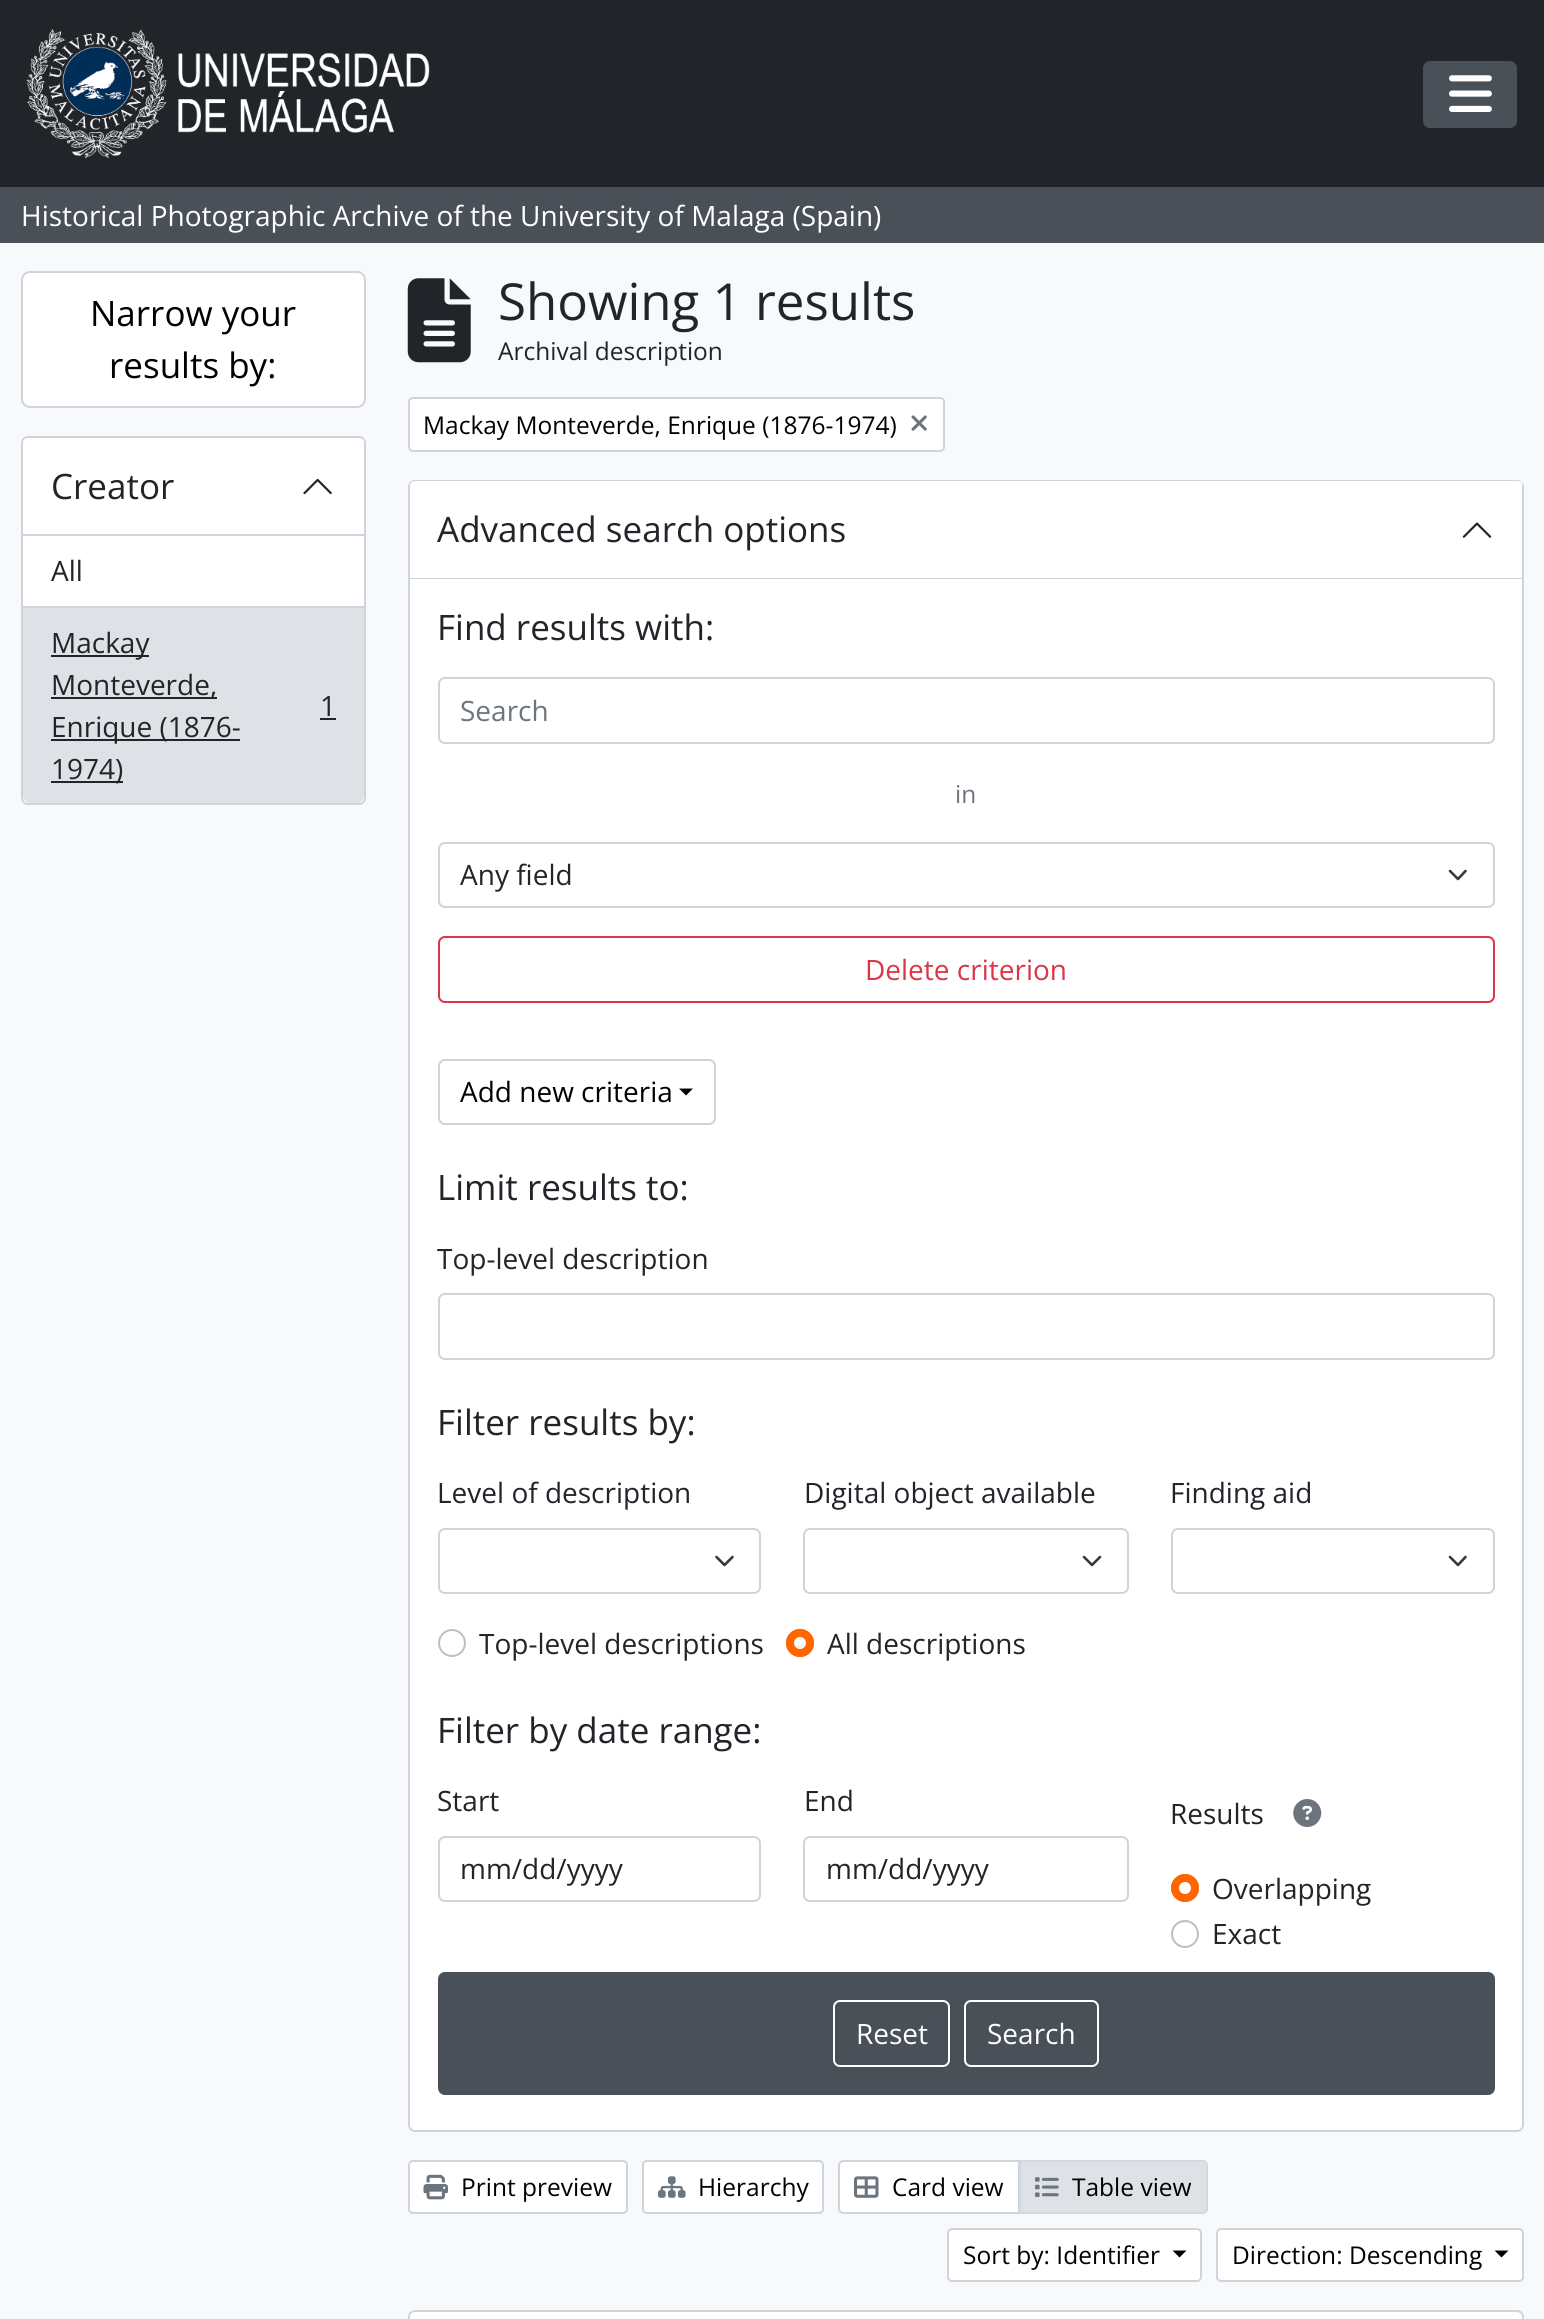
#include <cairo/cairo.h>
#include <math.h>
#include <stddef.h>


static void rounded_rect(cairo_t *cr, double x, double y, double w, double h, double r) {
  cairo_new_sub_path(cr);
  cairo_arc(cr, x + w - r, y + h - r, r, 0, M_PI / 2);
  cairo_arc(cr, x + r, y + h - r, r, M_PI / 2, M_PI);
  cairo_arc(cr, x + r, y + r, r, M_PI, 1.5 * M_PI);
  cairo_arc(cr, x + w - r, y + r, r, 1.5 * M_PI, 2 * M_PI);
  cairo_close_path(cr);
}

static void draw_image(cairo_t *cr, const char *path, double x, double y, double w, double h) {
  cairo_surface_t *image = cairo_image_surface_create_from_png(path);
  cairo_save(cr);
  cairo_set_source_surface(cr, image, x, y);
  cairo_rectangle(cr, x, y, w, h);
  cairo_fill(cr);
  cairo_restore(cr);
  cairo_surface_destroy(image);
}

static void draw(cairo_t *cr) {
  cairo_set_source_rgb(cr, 248 / 255.0, 249 / 255.0, 250 / 255.0);
  cairo_paint(cr);
  cairo_set_source_rgb(cr, 33 / 255.0, 37 / 255.0, 41 / 255.0);
  cairo_rectangle(cr, 0, 0, 1544, 187);
  cairo_fill(cr);
  draw_image(cr, "images/1.png", 26, 29, 404, 130);
  cairo_set_source_rgb(cr, 73 / 255.0, 80 / 255.0, 87 / 255.0);
  rounded_rect(cr, 1424, 62, 92, 65, 6);
  cairo_fill_preserve(cr);
  cairo_stroke(cr);
  draw_image(cr, "images/2.png", 1449, 75, 43, 37);
  cairo_rectangle(cr, 0, 187, 1544, 56);
  cairo_fill(cr);
  cairo_set_source_rgb(cr, 1, 1, 1);
  rounded_rect(cr, 22, 272, 343, 135, 8);
  cairo_fill_preserve(cr);
  cairo_set_source_rgb(cr, 206 / 255.0, 212 / 255.0, 218 / 255.0);
  cairo_stroke(cr);
  cairo_set_source_rgb(cr, 1, 1, 1);
  rounded_rect(cr, 22, 437, 343, 367, 6);
  cairo_fill_preserve(cr);
  cairo_set_source_rgb(cr, 206 / 255.0, 212 / 255.0, 218 / 255.0);
  cairo_stroke(cr);
  cairo_set_source_rgb(cr, 1, 1, 1);
  cairo_new_path(cr);
  cairo_move_to(cr, 28, 438);
  cairo_line_to(cr, 359, 438);
  cairo_curve_to(cr, 362, 438, 364, 440, 364, 443);
  cairo_line_to(cr, 364, 536);
  cairo_line_to(cr, 23, 536);
  cairo_line_to(cr, 23, 443);
  cairo_curve_to(cr, 23, 440, 25, 438, 28, 438);
  cairo_close_path(cr);
  cairo_fill(cr);
  cairo_set_source_rgb(cr, 206 / 255.0, 212 / 255.0, 218 / 255.0);
  cairo_rectangle(cr, 23, 534, 341, 2);
  cairo_fill(cr);
  draw_image(cr, "images/3.png", 303, 478, 29, 17);
  cairo_set_source_rgb(cr, 222 / 255.0, 226 / 255.0, 230 / 255.0);
  cairo_new_path(cr);
  cairo_move_to(cr, 23, 607);
  cairo_line_to(cr, 364, 607);
  cairo_line_to(cr, 364, 796);
  cairo_curve_to(cr, 364, 800, 361, 803, 357, 803);
  cairo_line_to(cr, 30, 803);
  cairo_curve_to(cr, 26, 803, 23, 800, 23, 796);
  cairo_close_path(cr);
  cairo_fill(cr);
  cairo_set_source_rgb(cr, 206 / 255.0, 212 / 255.0, 218 / 255.0);
  cairo_rectangle(cr, 23, 606, 341, 2);
  cairo_fill(cr);
  cairo_set_source_rgb(cr, 33 / 255.0, 37 / 255.0, 41 / 255.0);
  cairo_rectangle(cr, 51, 655, 98, 2);
  cairo_fill(cr);
  cairo_rectangle(cr, 51, 697, 166, 2);
  cairo_fill(cr);
  cairo_rectangle(cr, 320, 718, 16, 2);
  cairo_fill(cr);
  cairo_rectangle(cr, 51, 739, 189, 2);
  cairo_fill(cr);
  cairo_rectangle(cr, 51, 781, 72, 2);
  cairo_fill(cr);
  draw_image(cr, "images/4.png", 407, 278, 64, 85);
  cairo_set_source_rgb(cr, 1, 1, 1);
  rounded_rect(cr, 409, 398, 535, 53, 4);
  cairo_fill_preserve(cr);
  cairo_set_source_rgb(cr, 206 / 255.0, 212 / 255.0, 218 / 255.0);
  cairo_stroke(cr);
  draw_image(cr, "images/5.png", 911, 415, 16, 16);
  cairo_set_source_rgb(cr, 1, 1, 1);
  rounded_rect(cr, 409, 481, 1114, 1650, 6);
  cairo_fill_preserve(cr);
  cairo_set_source_rgb(cr, 206 / 255.0, 212 / 255.0, 218 / 255.0);
  cairo_stroke(cr);
  cairo_set_source_rgb(cr, 1, 1, 1);
  cairo_new_path(cr);
  cairo_move_to(cr, 415, 481);
  cairo_line_to(cr, 1518, 481);
  cairo_curve_to(cr, 1521, 481, 1523, 483, 1523, 486);
  cairo_line_to(cr, 1523, 579);
  cairo_line_to(cr, 410, 579);
  cairo_line_to(cr, 410, 486);
  cairo_curve_to(cr, 410, 483, 412, 481, 415, 481);
  cairo_close_path(cr);
  cairo_fill(cr);
  cairo_set_source_rgb(cr, 206 / 255.0, 212 / 255.0, 218 / 255.0);
  cairo_new_path(cr);
  cairo_move_to(cr, 410, 578);
  cairo_line_to(cr, 410, 579);
  cairo_line_to(cr, 1523, 579);
  cairo_line_to(cr, 1523, 485);
  cairo_line_to(cr, 1521, 482);
  cairo_line_to(cr, 1522, 485);
  cairo_line_to(cr, 1522, 578);
  cairo_close_path(cr);
  cairo_fill(cr);
  draw_image(cr, "images/6.png", 1462, 522, 30, 16);
  rounded_rect(cr, 439, 678, 1055, 65, 6);
  cairo_stroke(cr);
  cairo_new_path(cr);
  cairo_move_to(cr, 1450, 871);
  cairo_line_to(cr, 1458, 879);
  cairo_line_to(cr, 1465.5, 871);
  cairo_set_source_rgb(cr, 52 / 255.0, 58 / 255.0, 64 / 255.0);
  cairo_set_line_width(cr, 2.6);
  cairo_set_line_cap(cr, CAIRO_LINE_CAP_ROUND);
  cairo_set_line_join(cr, CAIRO_LINE_JOIN_ROUND);
  cairo_stroke(cr);
  rounded_rect(cr, 439, 843, 1055, 64, 6);
  cairo_set_source_rgb(cr, 206 / 255.0, 212 / 255.0, 218 / 255.0);
  cairo_set_line_width(cr, 2);
  cairo_set_line_cap(cr, CAIRO_LINE_CAP_BUTT);
  cairo_set_line_join(cr, CAIRO_LINE_JOIN_MITER);
  cairo_stroke(cr);
  rounded_rect(cr, 439, 937, 1055, 65, 6);
  cairo_set_source_rgb(cr, 220 / 255.0, 53 / 255.0, 69 / 255.0);
  cairo_stroke(cr);
  rounded_rect(cr, 439, 1060, 276, 64, 6);
  cairo_set_source_rgb(cr, 206 / 255.0, 212 / 255.0, 218 / 255.0);
  cairo_stroke(cr);
  cairo_set_source_rgb(cr, 0, 0, 0);
  cairo_new_path(cr);
  cairo_move_to(cr, 679, 1088.5);
  cairo_line_to(cr, 693, 1088.5);
  cairo_line_to(cr, 686, 1095.5);
  cairo_close_path(cr);
  cairo_fill(cr);
  rounded_rect(cr, 439, 1294, 1055, 65, 6);
  cairo_set_source_rgb(cr, 206 / 255.0, 212 / 255.0, 218 / 255.0);
  cairo_stroke(cr);
  cairo_new_path(cr);
  cairo_move_to(cr, 716.5, 1557);
  cairo_line_to(cr, 724.5, 1565);
  cairo_line_to(cr, 732.5, 1557);
  cairo_set_source_rgb(cr, 52 / 255.0, 58 / 255.0, 64 / 255.0);
  cairo_set_line_width(cr, 2.6);
  cairo_set_line_cap(cr, CAIRO_LINE_CAP_ROUND);
  cairo_set_line_join(cr, CAIRO_LINE_JOIN_ROUND);
  cairo_stroke(cr);
  rounded_rect(cr, 439, 1529, 321, 64, 6);
  cairo_set_source_rgb(cr, 206 / 255.0, 212 / 255.0, 218 / 255.0);
  cairo_set_line_width(cr, 2);
  cairo_set_line_cap(cr, CAIRO_LINE_CAP_BUTT);
  cairo_set_line_join(cr, CAIRO_LINE_JOIN_MITER);
  cairo_stroke(cr);
  cairo_new_path(cr);
  cairo_move_to(cr, 1084, 1557);
  cairo_line_to(cr, 1092, 1565);
  cairo_line_to(cr, 1100, 1557);
  cairo_set_source_rgb(cr, 52 / 255.0, 58 / 255.0, 64 / 255.0);
  cairo_set_line_width(cr, 2.6);
  cairo_set_line_cap(cr, CAIRO_LINE_CAP_ROUND);
  cairo_set_line_join(cr, CAIRO_LINE_JOIN_ROUND);
  cairo_stroke(cr);
  rounded_rect(cr, 804, 1529, 324, 64, 6);
  cairo_set_source_rgb(cr, 206 / 255.0, 212 / 255.0, 218 / 255.0);
  cairo_set_line_width(cr, 2);
  cairo_set_line_cap(cr, CAIRO_LINE_CAP_BUTT);
  cairo_set_line_join(cr, CAIRO_LINE_JOIN_MITER);
  cairo_stroke(cr);
  cairo_new_path(cr);
  cairo_move_to(cr, 1450, 1557);
  cairo_line_to(cr, 1458, 1565);
  cairo_line_to(cr, 1465.5, 1557);
  cairo_set_source_rgb(cr, 52 / 255.0, 58 / 255.0, 64 / 255.0);
  cairo_set_line_width(cr, 2.6);
  cairo_set_line_cap(cr, CAIRO_LINE_CAP_ROUND);
  cairo_set_line_join(cr, CAIRO_LINE_JOIN_ROUND);
  cairo_stroke(cr);
  rounded_rect(cr, 1172, 1529, 322, 64, 6);
  cairo_set_source_rgb(cr, 206 / 255.0, 212 / 255.0, 218 / 255.0);
  cairo_set_line_width(cr, 2);
  cairo_set_line_cap(cr, CAIRO_LINE_CAP_BUTT);
  cairo_set_line_join(cr, CAIRO_LINE_JOIN_MITER);
  cairo_stroke(cr);
  cairo_arc(cr, 452, 1643, 13, 0, 2 * M_PI);
  cairo_set_source_rgb(cr, 191 / 255.0, 191 / 255.0, 191 / 255.0);
  cairo_stroke(cr);
  cairo_set_source_rgb(cr, 1, 102 / 255.0, 0);
  cairo_arc(cr, 800, 1643, 14, 0, 2 * M_PI);
  cairo_fill(cr);
  cairo_set_source_rgb(cr, 1, 1, 1);
  cairo_arc(cr, 800, 1643, 6, 0, 2 * M_PI);
  cairo_fill(cr);
  cairo_arc(cr, 800, 1643, 13, 0, 2 * M_PI);
  cairo_set_source_rgb(cr, 1, 102 / 255.0, 0);
  cairo_stroke(cr);
  rounded_rect(cr, 439, 1837, 321, 64, 6);
  cairo_set_source_rgb(cr, 206 / 255.0, 212 / 255.0, 218 / 255.0);
  cairo_stroke(cr);
  rounded_rect(cr, 804, 1837, 324, 64, 6);
  cairo_stroke(cr);
  draw_image(cr, "images/7.png", 1293, 1799, 29, 28);
  cairo_set_source_rgb(cr, 1, 102 / 255.0, 0);
  cairo_arc(cr, 1185, 1888, 14, 0, 2 * M_PI);
  cairo_fill(cr);
  cairo_set_source_rgb(cr, 1, 1, 1);
  cairo_arc(cr, 1185, 1888, 6, 0, 2 * M_PI);
  cairo_fill(cr);
  cairo_arc(cr, 1185, 1888, 13, 0, 2 * M_PI);
  cairo_set_source_rgb(cr, 1, 102 / 255.0, 0);
  cairo_stroke(cr);
  cairo_arc(cr, 1185, 1934, 13, 0, 2 * M_PI);
  cairo_set_source_rgb(cr, 191 / 255.0, 191 / 255.0, 191 / 255.0);
  cairo_stroke(cr);
  cairo_set_source_rgb(cr, 73 / 255.0, 80 / 255.0, 87 / 255.0);
  rounded_rect(cr, 438, 1972, 1057, 123, 7);
  cairo_fill(cr);
  rounded_rect(cr, 834, 2001, 115, 65, 6);
  cairo_set_source_rgb(cr, 1, 1, 1);
  cairo_stroke(cr);
  rounded_rect(cr, 965, 2001, 133, 65, 6);
  cairo_stroke(cr);
  rounded_rect(cr, 409, 2161, 218, 52, 4);
  cairo_fill_preserve(cr);
  cairo_set_source_rgb(cr, 206 / 255.0, 212 / 255.0, 218 / 255.0);
  cairo_stroke(cr);
  draw_image(cr, "images/8.png", 423, 2174, 25, 26);
  cairo_set_source_rgb(cr, 1, 1, 1);
  rounded_rect(cr, 643, 2161, 180, 52, 4);
  cairo_fill_preserve(cr);
  cairo_set_source_rgb(cr, 206 / 255.0, 212 / 255.0, 218 / 255.0);
  cairo_stroke(cr);
  draw_image(cr, "images/9.png", 658, 2176, 28, 22);
  cairo_set_source_rgb(cr, 1, 1, 1);
  cairo_new_path(cr);
  cairo_move_to(cr, 843, 2161);
  cairo_line_to(cr, 1019, 2161);
  cairo_line_to(cr, 1019, 2213);
  cairo_line_to(cr, 843, 2213);
  cairo_curve_to(cr, 841, 2213, 839, 2211, 839, 2209);
  cairo_line_to(cr, 839, 2165);
  cairo_curve_to(cr, 839, 2163, 841, 2161, 843, 2161);
  cairo_close_path(cr);
  cairo_fill_preserve(cr);
  cairo_set_source_rgb(cr, 206 / 255.0, 212 / 255.0, 218 / 255.0);
  cairo_stroke(cr);
  draw_image(cr, "images/10.png", 854, 2176, 25, 22);
  cairo_set_source_rgb(cr, 222 / 255.0, 226 / 255.0, 230 / 255.0);
  cairo_new_path(cr);
  cairo_move_to(cr, 1020, 2161);
  cairo_line_to(cr, 1203, 2161);
  cairo_curve_to(cr, 1205, 2161, 1207, 2163, 1207, 2165);
  cairo_line_to(cr, 1207, 2209);
  cairo_curve_to(cr, 1207, 2211, 1205, 2213, 1203, 2213);
  cairo_line_to(cr, 1020, 2213);
  cairo_close_path(cr);
  cairo_fill_preserve(cr);
  cairo_set_source_rgb(cr, 211 / 255.0, 216 / 255.0, 222 / 255.0);
  cairo_stroke(cr);
  draw_image(cr, "images/11.png", 1035, 2177, 24, 20);
  cairo_set_source_rgb(cr, 1, 1, 1);
  rounded_rect(cr, 948, 2229, 253, 52, 4);
  cairo_fill_preserve(cr);
  cairo_set_source_rgb(cr, 206 / 255.0, 212 / 255.0, 218 / 255.0);
  cairo_stroke(cr);
  cairo_set_source_rgb(cr, 0, 0, 0);
  cairo_new_path(cr);
  cairo_move_to(cr, 1172.5, 2250.5);
  cairo_line_to(cr, 1186.5, 2250.5);
  cairo_line_to(cr, 1179.5, 2257.5);
  cairo_close_path(cr);
  cairo_fill(cr);
  cairo_set_source_rgb(cr, 1, 1, 1);
  rounded_rect(cr, 1217, 2229, 306, 52, 4);
  cairo_fill_preserve(cr);
  cairo_set_source_rgb(cr, 206 / 255.0, 212 / 255.0, 218 / 255.0);
  cairo_stroke(cr);
  cairo_set_source_rgb(cr, 0, 0, 0);
  cairo_new_path(cr);
  cairo_move_to(cr, 1494.5, 2250.5);
  cairo_line_to(cr, 1508.5, 2250.5);
  cairo_line_to(cr, 1501.5, 2257.5);
  cairo_close_path(cr);
  cairo_fill(cr);
  cairo_set_source_rgb(cr, 1, 1, 1);
  rounded_rect(cr, 409, 2311, 1114, 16, 6);
  cairo_fill_preserve(cr);
  cairo_set_source_rgb(cr, 206 / 255.0, 212 / 255.0, 218 / 255.0);
  cairo_stroke(cr);
  cairo_select_font_face(cr, "Open Sans", CAIRO_FONT_SLANT_NORMAL, CAIRO_FONT_WEIGHT_NORMAL);
  cairo_set_font_size(cr, 28);
  cairo_set_source_rgb(cr, 1, 1, 1);
  cairo_move_to(cr, 21, 226);
  cairo_show_text(cr, "Historical Photographic Archive of the University of Malaga (Spain)");
  cairo_set_font_size(cr, 35);
  cairo_set_source_rgb(cr, 0, 0, 0);
  cairo_move_to(cr, 90, 326);
  cairo_show_text(cr, "Narrow your");
  cairo_move_to(cr, 109, 378);
  cairo_show_text(cr, "results by:");
  cairo_set_source_rgb(cr, 33 / 255.0, 37 / 255.0, 41 / 255.0);
  cairo_move_to(cr, 51, 499);
  cairo_show_text(cr, "Creator");
  cairo_set_font_size(cr, 28);
  cairo_move_to(cr, 51, 581);
  cairo_show_text(cr, "All");
  cairo_move_to(cr, 51, 653);
  cairo_show_text(cr, "Mackay");
  cairo_move_to(cr, 51, 695);
  cairo_show_text(cr, "Monteverde,");
  cairo_move_to(cr, 320, 716);
  cairo_show_text(cr, "1");
  cairo_move_to(cr, 51, 737);
  cairo_show_text(cr, "Enrique (1876-");
  cairo_move_to(cr, 51, 779);
  cairo_show_text(cr, "1974)");
  cairo_set_font_size(cr, 51);
  cairo_move_to(cr, 498, 320);
  cairo_show_text(cr, "Showing 1 results");
  cairo_set_font_size(cr, 24.5);
  cairo_move_to(cr, 498, 360);
  cairo_show_text(cr, "Archival description");
  cairo_set_source_rgb(cr, 0, 0, 0);
  cairo_move_to(cr, 423, 434);
  cairo_show_text(cr, "Mackay Monteverde, Enrique (1876-1974)");
  cairo_set_font_size(cr, 35);
  cairo_set_source_rgb(cr, 33 / 255.0, 37 / 255.0, 41 / 255.0);
  cairo_move_to(cr, 437, 542);
  cairo_show_text(cr, "Advanced search options");
  cairo_move_to(cr, 437, 640);
  cairo_show_text(cr, "Find results with:");
  cairo_set_font_size(cr, 28);
  cairo_set_source_rgb(cr, 108 / 255.0, 117 / 255.0, 125 / 255.0);
  cairo_move_to(cr, 460, 721);
  cairo_show_text(cr, "Search");
  cairo_set_font_size(cr, 24.5);
  cairo_move_to(cr, 955, 803);
  cairo_show_text(cr, "in");
  cairo_set_font_size(cr, 28);
  cairo_set_source_rgb(cr, 33 / 255.0, 37 / 255.0, 41 / 255.0);
  cairo_move_to(cr, 460, 885);
  cairo_show_text(cr, "Any field");
  cairo_set_source_rgb(cr, 220 / 255.0, 53 / 255.0, 69 / 255.0);
  cairo_move_to(cr, 865, 980);
  cairo_show_text(cr, "Delete criterion");
  cairo_set_source_rgb(cr, 0, 0, 0);
  cairo_move_to(cr, 460, 1102);
  cairo_show_text(cr, "Add new criteria");
  cairo_set_font_size(cr, 35);
  cairo_set_source_rgb(cr, 33 / 255.0, 37 / 255.0, 41 / 255.0);
  cairo_move_to(cr, 437, 1200);
  cairo_show_text(cr, "Limit results to:");
  cairo_set_font_size(cr, 28);
  cairo_move_to(cr, 437, 1269);
  cairo_show_text(cr, "Top-level description");
  cairo_set_font_size(cr, 35);
  cairo_move_to(cr, 437, 1435);
  cairo_show_text(cr, "Filter results by:");
  cairo_set_font_size(cr, 28);
  cairo_move_to(cr, 437, 1503);
  cairo_show_text(cr, "Level of description");
  cairo_move_to(cr, 804, 1503);
  cairo_show_text(cr, "Digital object available");
  cairo_move_to(cr, 1170, 1503);
  cairo_show_text(cr, "Finding aid");
  cairo_move_to(cr, 479, 1654);
  cairo_show_text(cr, "Top-level descriptions");
  cairo_move_to(cr, 827, 1654);
  cairo_show_text(cr, "All descriptions");
  cairo_set_font_size(cr, 35);
  cairo_move_to(cr, 437, 1743);
  cairo_show_text(cr, "Filter by date range:");
  cairo_set_font_size(cr, 28);
  cairo_move_to(cr, 437, 1811);
  cairo_show_text(cr, "Start");
  cairo_move_to(cr, 460, 1879);
  cairo_show_text(cr, "mm/dd/yyyy");
  cairo_move_to(cr, 804, 1811);
  cairo_show_text(cr, "End");
  cairo_move_to(cr, 826, 1879);
  cairo_show_text(cr, "mm/dd/yyyy");
  cairo_move_to(cr, 1170, 1824);
  cairo_show_text(cr, "Results");
  cairo_move_to(cr, 1212, 1899);
  cairo_show_text(cr, "Overlapping");
  cairo_move_to(cr, 1212, 1944);
  cairo_show_text(cr, "Exact");
  cairo_set_source_rgb(cr, 1, 1, 1);
  cairo_move_to(cr, 856, 2044);
  cairo_show_text(cr, "Reset");
  cairo_move_to(cr, 987, 2044);
  cairo_show_text(cr, "Search");
  cairo_set_font_size(cr, 24.5);
  cairo_set_source_rgb(cr, 0, 0, 0);
  cairo_move_to(cr, 461, 2196);
  cairo_show_text(cr, "Print preview");
  cairo_move_to(cr, 698, 2196);
  cairo_show_text(cr, "Hierarchy");
  cairo_move_to(cr, 892, 2196);
  cairo_show_text(cr, "Card view");
  cairo_move_to(cr, 1072, 2196);
  cairo_show_text(cr, "Table view");
  cairo_move_to(cr, 963, 2264);
  cairo_show_text(cr, "Sort by: Identifier");
  cairo_move_to(cr, 1232, 2264);
  cairo_show_text(cr, "Direction: Descending");
}

int main(void) {
  cairo_surface_t *surface = cairo_image_surface_create(CAIRO_FORMAT_RGB24, 1544, 2319);
  cairo_t *cr = cairo_create(surface);
  cairo_font_options_t *options = cairo_font_options_create();
  cairo_font_options_set_hint_metrics(options, CAIRO_HINT_METRICS_OFF);
  cairo_font_options_set_hint_style(options, CAIRO_HINT_STYLE_NONE);
  cairo_set_font_options(cr, options);
  cairo_set_miter_limit(cr, 4);
  draw(cr);
  cairo_surface_write_to_png(surface, "out.png");
  cairo_font_options_destroy(options);
  cairo_destroy(cr);
  cairo_surface_destroy(surface);
  return 0;
}
